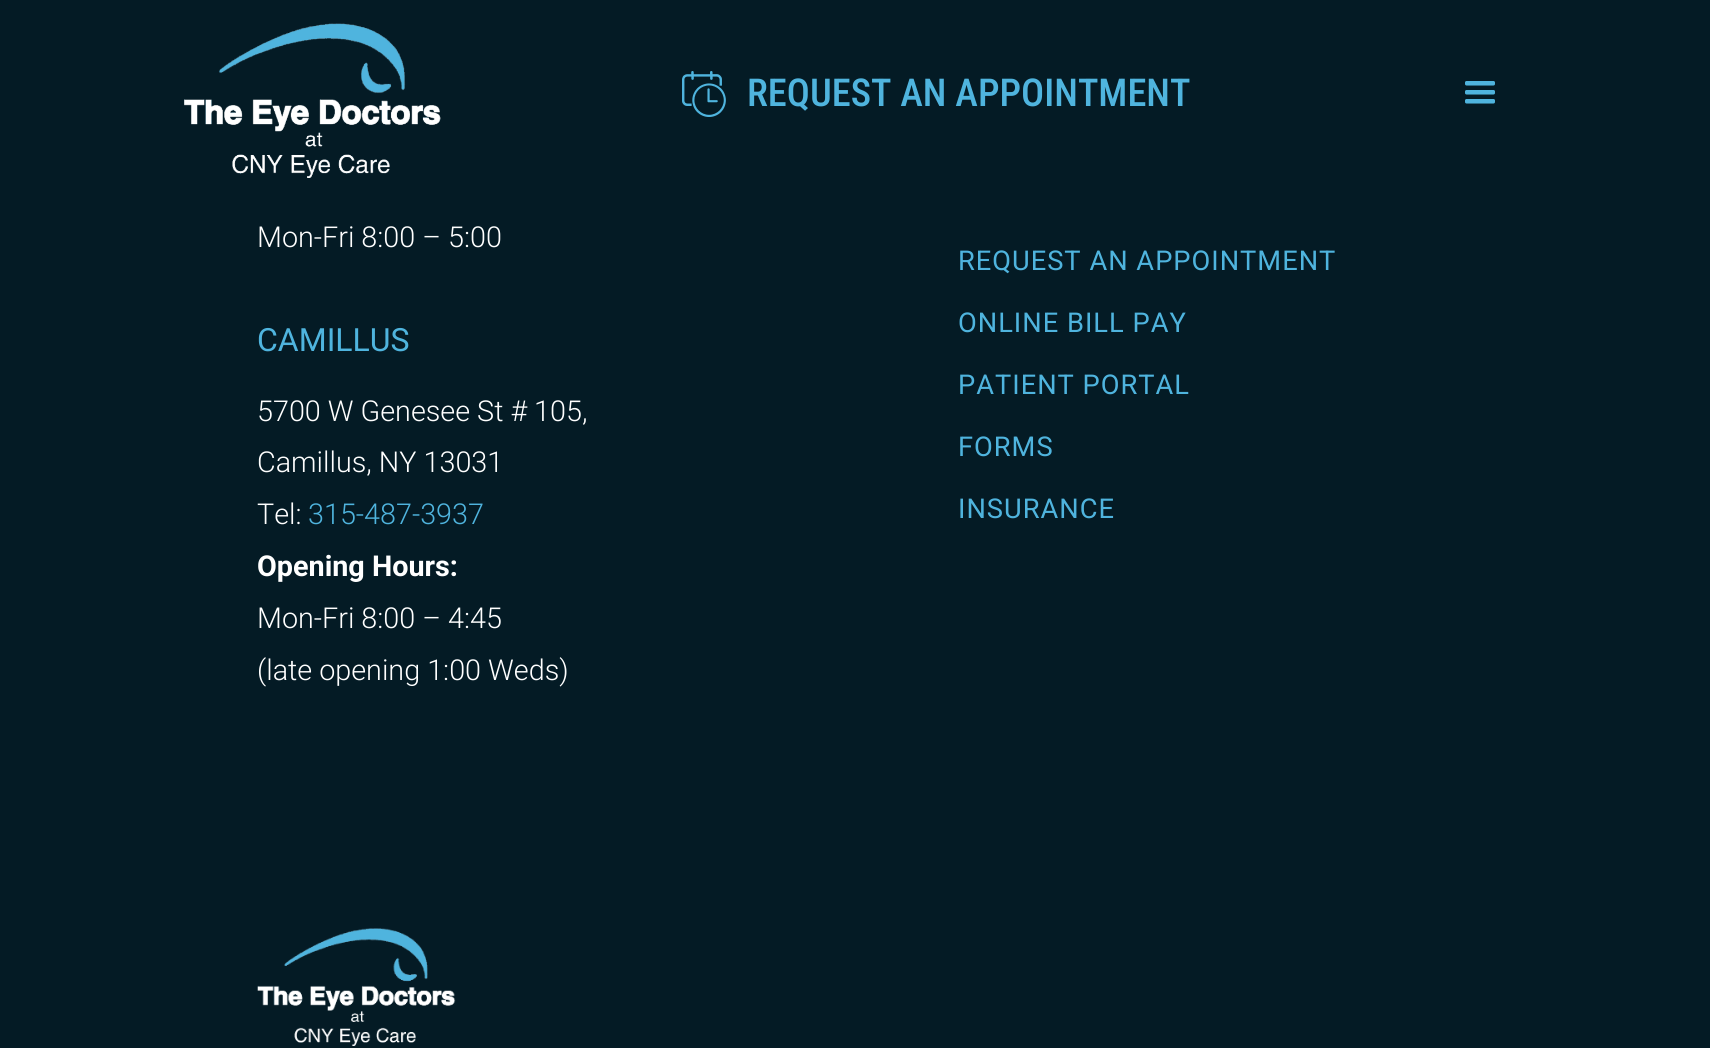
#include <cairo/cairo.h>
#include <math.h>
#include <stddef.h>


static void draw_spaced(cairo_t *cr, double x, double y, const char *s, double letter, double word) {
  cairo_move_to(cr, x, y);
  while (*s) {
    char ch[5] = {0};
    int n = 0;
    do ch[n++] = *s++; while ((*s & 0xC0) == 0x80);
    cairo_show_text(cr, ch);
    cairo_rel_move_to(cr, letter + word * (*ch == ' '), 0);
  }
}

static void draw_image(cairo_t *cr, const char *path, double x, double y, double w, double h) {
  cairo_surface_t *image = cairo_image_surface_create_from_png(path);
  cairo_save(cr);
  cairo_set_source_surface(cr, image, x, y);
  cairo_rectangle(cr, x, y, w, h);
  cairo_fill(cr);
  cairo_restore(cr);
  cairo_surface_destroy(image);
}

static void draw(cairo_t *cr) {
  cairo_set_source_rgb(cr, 4 / 255.0, 27 / 255.0, 37 / 255.0);
  cairo_paint(cr);
  draw_image(cr, "images/1.png", 184, 23, 257, 155);
  draw_image(cr, "images/2.png", 682, 71, 44, 46);
  draw_image(cr, "images/3.png", 1465, 81, 30, 23);
  draw_image(cr, "images/4.png", 257, 928, 199, 118);
  cairo_select_font_face(cr, "Roboto Condensed Medium", CAIRO_FONT_SLANT_NORMAL, CAIRO_FONT_WEIGHT_NORMAL);
  cairo_set_font_size(cr, 38.4);
  cairo_set_source_rgb(cr, 79 / 255.0, 180 / 255.0, 222 / 255.0);
  cairo_move_to(cr, 747, 106);
  cairo_show_text(cr, "REQUEST AN APPOINTMENT");
  cairo_select_font_face(cr, "Roboto Light", CAIRO_FONT_SLANT_NORMAL, CAIRO_FONT_WEIGHT_NORMAL);
  cairo_set_font_size(cr, 28.75);
  cairo_set_source_rgb(cr, 1, 1, 1);
  cairo_move_to(cr, 257, 247);
  cairo_show_text(cr, "Mon-Fri 8:00 – 5:00");
  cairo_select_font_face(cr, "Roboto", CAIRO_FONT_SLANT_NORMAL, CAIRO_FONT_WEIGHT_NORMAL);
  cairo_set_font_size(cr, 32);
  cairo_set_source_rgb(cr, 79 / 255.0, 180 / 255.0, 222 / 255.0);
  cairo_move_to(cr, 257, 351);
  cairo_show_text(cr, "CAMILLUS");
  cairo_select_font_face(cr, "Roboto Light", CAIRO_FONT_SLANT_NORMAL, CAIRO_FONT_WEIGHT_NORMAL);
  cairo_set_font_size(cr, 28.75);
  cairo_set_source_rgb(cr, 1, 1, 1);
  cairo_move_to(cr, 257, 421);
  cairo_show_text(cr, "5700 W Genesee St # 105,");
  cairo_move_to(cr, 257, 472);
  cairo_show_text(cr, "Camillus, NY 13031");
  cairo_move_to(cr, 257, 524);
  cairo_show_text(cr, "Tel:");
  cairo_set_source_rgb(cr, 79 / 255.0, 180 / 255.0, 222 / 255.0);
  cairo_move_to(cr, 308, 524);
  cairo_show_text(cr, "315-487-3937");
  cairo_select_font_face(cr, "Roboto", CAIRO_FONT_SLANT_NORMAL, CAIRO_FONT_WEIGHT_BOLD);
  cairo_set_source_rgb(cr, 1, 1, 1);
  cairo_move_to(cr, 257, 576);
  cairo_show_text(cr, "Opening Hours:");
  cairo_select_font_face(cr, "Roboto Light", CAIRO_FONT_SLANT_NORMAL, CAIRO_FONT_WEIGHT_NORMAL);
  cairo_move_to(cr, 257, 628);
  cairo_show_text(cr, "Mon-Fri 8:00 – 4:45");
  cairo_move_to(cr, 257, 680);
  cairo_show_text(cr, "(late opening 1:00 Weds)");
  cairo_select_font_face(cr, "Roboto", CAIRO_FONT_SLANT_NORMAL, CAIRO_FONT_WEIGHT_NORMAL);
  cairo_set_font_size(cr, 27.25);
  cairo_set_source_rgb(cr, 79 / 255.0, 180 / 255.0, 222 / 255.0);
  draw_spaced(cr, 958, 270, "REQUEST AN APPOINTMENT", 1, 0);
  draw_spaced(cr, 958, 332, "ONLINE BILL PAY", 1, 0);
  draw_spaced(cr, 958, 394, "PATIENT PORTAL", 1, 0);
  draw_spaced(cr, 958, 456, "FORMS", 1, 0);
  draw_spaced(cr, 958, 518, "INSURANCE", 1, 0);
}

int main(void) {
  cairo_surface_t *surface = cairo_image_surface_create(CAIRO_FORMAT_RGB24, 1710, 1048);
  cairo_t *cr = cairo_create(surface);
  cairo_font_options_t *options = cairo_font_options_create();
  cairo_font_options_set_hint_metrics(options, CAIRO_HINT_METRICS_OFF);
  cairo_font_options_set_hint_style(options, CAIRO_HINT_STYLE_NONE);
  cairo_set_font_options(cr, options);
  cairo_set_miter_limit(cr, 4);
  draw(cr);
  cairo_surface_write_to_png(surface, "out.png");
  cairo_font_options_destroy(options);
  cairo_destroy(cr);
  cairo_surface_destroy(surface);
  return 0;
}
